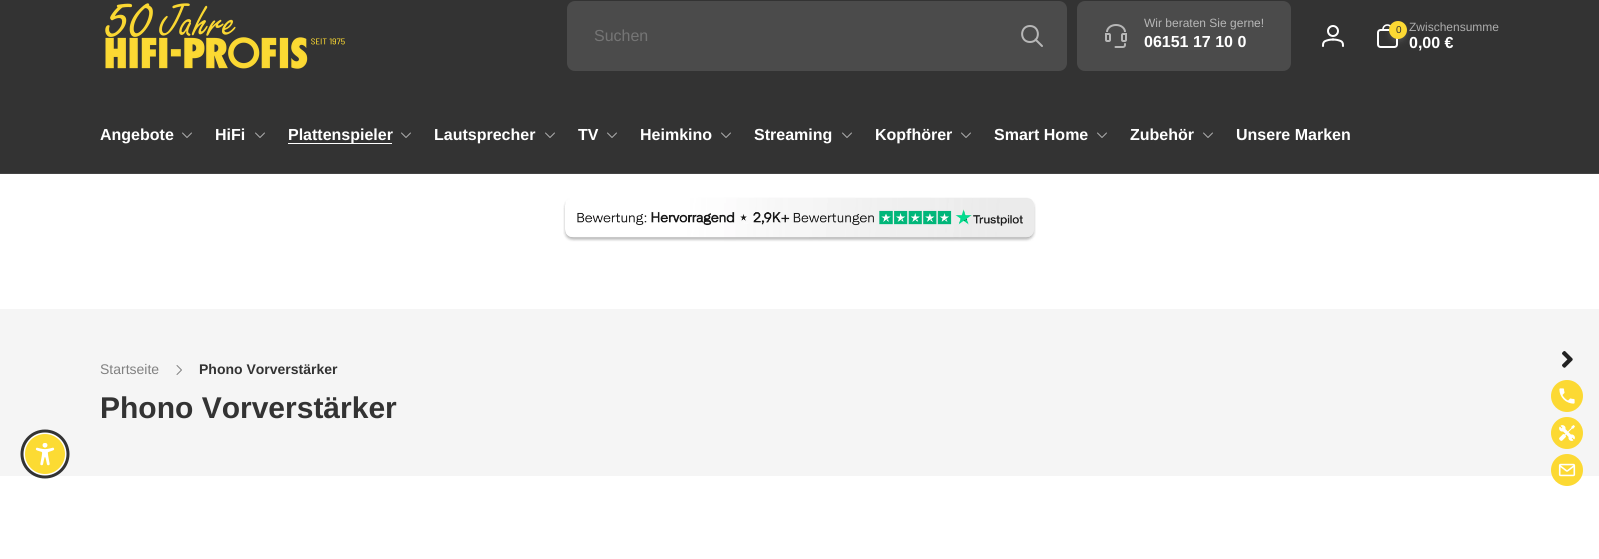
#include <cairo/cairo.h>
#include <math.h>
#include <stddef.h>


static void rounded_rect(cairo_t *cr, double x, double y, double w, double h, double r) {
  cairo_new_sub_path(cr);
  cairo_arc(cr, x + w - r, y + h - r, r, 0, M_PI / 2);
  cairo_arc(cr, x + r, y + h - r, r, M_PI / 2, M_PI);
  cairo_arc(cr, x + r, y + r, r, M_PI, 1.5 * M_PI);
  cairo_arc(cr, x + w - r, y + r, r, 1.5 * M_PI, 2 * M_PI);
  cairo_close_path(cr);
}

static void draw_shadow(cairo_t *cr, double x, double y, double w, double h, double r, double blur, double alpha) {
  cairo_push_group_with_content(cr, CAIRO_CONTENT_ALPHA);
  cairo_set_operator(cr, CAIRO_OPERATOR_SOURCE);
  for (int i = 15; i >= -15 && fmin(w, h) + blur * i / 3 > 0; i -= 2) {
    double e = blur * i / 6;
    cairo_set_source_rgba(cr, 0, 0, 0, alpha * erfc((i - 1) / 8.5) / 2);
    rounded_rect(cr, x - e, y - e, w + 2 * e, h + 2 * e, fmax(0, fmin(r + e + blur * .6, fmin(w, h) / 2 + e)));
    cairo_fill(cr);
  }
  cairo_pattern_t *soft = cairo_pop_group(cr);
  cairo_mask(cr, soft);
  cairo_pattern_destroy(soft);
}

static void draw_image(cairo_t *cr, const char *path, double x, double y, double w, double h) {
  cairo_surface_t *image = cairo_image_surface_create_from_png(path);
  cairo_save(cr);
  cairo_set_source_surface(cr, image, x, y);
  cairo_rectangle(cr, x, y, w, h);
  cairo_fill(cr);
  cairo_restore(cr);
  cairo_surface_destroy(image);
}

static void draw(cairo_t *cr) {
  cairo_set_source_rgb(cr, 1, 1, 1);
  cairo_paint(cr);
  cairo_set_source_rgb(cr, 51 / 255.0, 51 / 255.0, 51 / 255.0);
  cairo_rectangle(cr, 0, 0, 1599, 173);
  cairo_fill(cr);
  cairo_set_source_rgb(cr, 67 / 255.0, 67 / 255.0, 67 / 255.0);
  cairo_rectangle(cr, 0, 173, 1599, 1);
  cairo_fill(cr);
  draw_image(cr, "images/1.png", 105, 3, 240, 66);
  cairo_set_source_rgb(cr, 75 / 255.0, 75 / 255.0, 75 / 255.0);
  rounded_rect(cr, 567, 1, 500, 70, 8);
  cairo_fill(cr);
  cairo_new_path(cr);
  cairo_move_to(cr, 1042, 46);
  cairo_line_to(cr, 1035.5, 39.5);
  cairo_move_to(cr, 1030, 42);
  cairo_curve_to(cr, 1040.5, 42, 1040.5, 26, 1030, 26);
  cairo_curve_to(cr, 1019.5, 26, 1019.5, 42, 1030, 42);
  cairo_close_path(cr);
  cairo_set_source_rgb(cr, 183 / 255.0, 183 / 255.0, 183 / 255.0);
  cairo_set_line_cap(cr, CAIRO_LINE_CAP_ROUND);
  cairo_set_line_join(cr, CAIRO_LINE_JOIN_ROUND);
  cairo_stroke(cr);
  cairo_set_source_rgb(cr, 75 / 255.0, 75 / 255.0, 75 / 255.0);
  rounded_rect(cr, 1077, 1, 214, 70, 8);
  cairo_fill(cr);
  draw_image(cr, "images/2.png", 1105, 24, 22, 24);
  draw_image(cr, "images/3.png", 1322, 25, 22, 22);
  draw_image(cr, "images/4.png", 1377, 24, 21, 24);
  cairo_set_source_rgb(cr, 1, 1, 1);
  draw_shadow(cr, 1390, 24, 16, 16, 8, 2, 0.06);
  draw_shadow(cr, 1390, 26, 16, 16, 8, 3, 0.1);
  cairo_set_source_rgb(cr, 252 / 255.0, 217 / 255.0, 51 / 255.0);
  cairo_arc(cr, 1398, 30, 9, 0, 2 * M_PI);
  cairo_fill(cr);
  cairo_new_path(cr);
  cairo_move_to(cr, 191.5, 133);
  cairo_line_to(cr, 187, 137.5);
  cairo_line_to(cr, 182.5, 133);
  cairo_set_source_rgb(cr, 173 / 255.0, 173 / 255.0, 173 / 255.0);
  cairo_set_line_width(cr, 1);
  cairo_stroke(cr);
  cairo_new_path(cr);
  cairo_move_to(cr, 264.5, 133);
  cairo_line_to(cr, 260, 137.5);
  cairo_line_to(cr, 255.5, 133);
  cairo_stroke(cr);
  cairo_set_source_rgb(cr, 1, 1, 1);
  cairo_rectangle(cr, 288, 143, 104, 1);
  cairo_fill(cr);
  cairo_new_path(cr);
  cairo_move_to(cr, 410.5, 133);
  cairo_line_to(cr, 406, 137.5);
  cairo_line_to(cr, 401.5, 133);
  cairo_set_source_rgb(cr, 173 / 255.0, 173 / 255.0, 173 / 255.0);
  cairo_stroke(cr);
  cairo_new_path(cr);
  cairo_move_to(cr, 554.5, 133);
  cairo_line_to(cr, 550, 137.5);
  cairo_line_to(cr, 545.5, 133);
  cairo_stroke(cr);
  cairo_new_path(cr);
  cairo_move_to(cr, 616.5, 133);
  cairo_line_to(cr, 612, 137.5);
  cairo_line_to(cr, 607.5, 133);
  cairo_stroke(cr);
  cairo_new_path(cr);
  cairo_move_to(cr, 730.5, 133);
  cairo_line_to(cr, 726, 137.5);
  cairo_line_to(cr, 721.5, 133);
  cairo_stroke(cr);
  cairo_new_path(cr);
  cairo_move_to(cr, 851.5, 133);
  cairo_line_to(cr, 847, 137.5);
  cairo_line_to(cr, 842.5, 133);
  cairo_stroke(cr);
  cairo_new_path(cr);
  cairo_move_to(cr, 970.5, 133);
  cairo_line_to(cr, 966, 137.5);
  cairo_line_to(cr, 961.5, 133);
  cairo_stroke(cr);
  cairo_new_path(cr);
  cairo_move_to(cr, 1106.5, 133);
  cairo_line_to(cr, 1102, 137.5);
  cairo_line_to(cr, 1097.5, 133);
  cairo_stroke(cr);
  cairo_new_path(cr);
  cairo_move_to(cr, 1212.5, 133);
  cairo_line_to(cr, 1208, 137.5);
  cairo_line_to(cr, 1203.5, 133);
  cairo_stroke(cr);
  draw_image(cr, "images/5.png", 563, 197, 473, 45);
  cairo_set_source_rgb(cr, 245 / 255.0, 245 / 255.0, 245 / 255.0);
  cairo_rectangle(cr, 0, 309, 1599, 167);
  cairo_fill(cr);
  cairo_new_path(cr);
  cairo_move_to(cr, 177, 365.5);
  cairo_line_to(cr, 181.5, 370);
  cairo_line_to(cr, 177, 374.5);
  cairo_set_source_rgb(cr, 129 / 255.0, 129 / 255.0, 129 / 255.0);
  cairo_stroke(cr);
  draw_image(cr, "images/6.png", 1562, 351, 11, 17);
  cairo_set_source_rgb(cr, 252 / 255.0, 217 / 255.0, 51 / 255.0);
  cairo_arc(cr, 1567, 396, 16, 0, 2 * M_PI);
  cairo_fill(cr);
  draw_image(cr, "images/7.png", 1559, 388, 16, 16);
  cairo_arc(cr, 1567, 433, 16, 0, 2 * M_PI);
  cairo_fill(cr);
  draw_image(cr, "images/8.png", 1559, 425, 16, 16);
  cairo_arc(cr, 1567, 470, 16, 0, 2 * M_PI);
  cairo_fill(cr);
  draw_image(cr, "images/9.png", 1558, 463, 18, 14);
  cairo_set_source_rgb(cr, 51 / 255.0, 51 / 255.0, 51 / 255.0);
  cairo_arc(cr, 45, 454, 24.5, 0, 2 * M_PI);
  cairo_fill(cr);
  cairo_set_source_rgb(cr, 1, 1, 1);
  cairo_arc(cr, 45, 454, 21.5, 0, 2 * M_PI);
  cairo_fill(cr);
  cairo_set_source_rgb(cr, 252 / 255.0, 219 / 255.0, 51 / 255.0);
  cairo_arc(cr, 45, 454, 20, 0, 2 * M_PI);
  cairo_fill(cr);
  draw_image(cr, "images/10.png", 35, 443, 20, 23);
  cairo_select_font_face(cr, "Liberation Sans", CAIRO_FONT_SLANT_NORMAL, CAIRO_FONT_WEIGHT_NORMAL);
  cairo_set_font_size(cr, 16);
  cairo_set_source_rgb(cr, 117 / 255.0, 117 / 255.0, 117 / 255.0);
  cairo_move_to(cr, 594, 41);
  cairo_show_text(cr, "Suchen");
  cairo_set_font_size(cr, 12);
  cairo_set_source_rgb(cr, 183 / 255.0, 183 / 255.0, 183 / 255.0);
  cairo_move_to(cr, 1144, 27);
  cairo_show_text(cr, "Wir beraten Sie gerne!");
  cairo_select_font_face(cr, "Liberation Sans", CAIRO_FONT_SLANT_NORMAL, CAIRO_FONT_WEIGHT_BOLD);
  cairo_set_font_size(cr, 16);
  cairo_set_source_rgb(cr, 1, 1, 1);
  cairo_move_to(cr, 1144, 47);
  cairo_show_text(cr, "06151 17 10 0");
  cairo_select_font_face(cr, "Liberation Sans", CAIRO_FONT_SLANT_NORMAL, CAIRO_FONT_WEIGHT_NORMAL);
  cairo_set_font_size(cr, 10);
  cairo_set_source_rgb(cr, 51 / 255.0, 51 / 255.0, 51 / 255.0);
  cairo_move_to(cr, 1396, 33);
  cairo_show_text(cr, "0");
  cairo_set_font_size(cr, 12);
  cairo_set_source_rgb(cr, 173 / 255.0, 173 / 255.0, 173 / 255.0);
  cairo_move_to(cr, 1409, 31);
  cairo_show_text(cr, "Zwischensumme");
  cairo_select_font_face(cr, "Liberation Sans", CAIRO_FONT_SLANT_NORMAL, CAIRO_FONT_WEIGHT_BOLD);
  cairo_set_font_size(cr, 16);
  cairo_set_source_rgb(cr, 1, 1, 1);
  cairo_move_to(cr, 1409, 48);
  cairo_show_text(cr, "0,00 €");
  cairo_move_to(cr, 100, 140);
  cairo_show_text(cr, "Angebote");
  cairo_move_to(cr, 215, 140);
  cairo_show_text(cr, "HiFi");
  cairo_move_to(cr, 288, 140);
  cairo_show_text(cr, "Plattenspieler");
  cairo_move_to(cr, 434, 140);
  cairo_show_text(cr, "Lautsprecher");
  cairo_move_to(cr, 578, 140);
  cairo_show_text(cr, "TV");
  cairo_move_to(cr, 640, 140);
  cairo_show_text(cr, "Heimkino");
  cairo_move_to(cr, 754, 140);
  cairo_show_text(cr, "Streaming");
  cairo_move_to(cr, 875, 140);
  cairo_show_text(cr, "Kopfhörer");
  cairo_move_to(cr, 994, 140);
  cairo_show_text(cr, "Smart Home");
  cairo_move_to(cr, 1130, 140);
  cairo_show_text(cr, "Zubehör");
  cairo_move_to(cr, 1236, 140);
  cairo_show_text(cr, "Unsere Marken");
  cairo_select_font_face(cr, "Liberation Sans", CAIRO_FONT_SLANT_NORMAL, CAIRO_FONT_WEIGHT_NORMAL);
  cairo_set_font_size(cr, 14);
  cairo_set_source_rgb(cr, 129 / 255.0, 129 / 255.0, 129 / 255.0);
  cairo_move_to(cr, 100, 374);
  cairo_show_text(cr, "Startseite");
  cairo_select_font_face(cr, "Liberation Sans", CAIRO_FONT_SLANT_NORMAL, CAIRO_FONT_WEIGHT_BOLD);
  cairo_set_source_rgb(cr, 51 / 255.0, 51 / 255.0, 51 / 255.0);
  cairo_move_to(cr, 199, 374);
  cairo_show_text(cr, "Phono Vorverstärker");
  cairo_set_font_size(cr, 30);
  cairo_move_to(cr, 100, 418);
  cairo_show_text(cr, "Phono Vorverstärker");
}

int main(void) {
  cairo_surface_t *surface = cairo_image_surface_create(CAIRO_FORMAT_RGB24, 1599, 559);
  cairo_t *cr = cairo_create(surface);
  cairo_font_options_t *options = cairo_font_options_create();
  cairo_font_options_set_hint_metrics(options, CAIRO_HINT_METRICS_OFF);
  cairo_font_options_set_hint_style(options, CAIRO_HINT_STYLE_NONE);
  cairo_set_font_options(cr, options);
  cairo_set_miter_limit(cr, 4);
  draw(cr);
  cairo_surface_write_to_png(surface, "out.png");
  cairo_font_options_destroy(options);
  cairo_destroy(cr);
  cairo_surface_destroy(surface);
  return 0;
}
